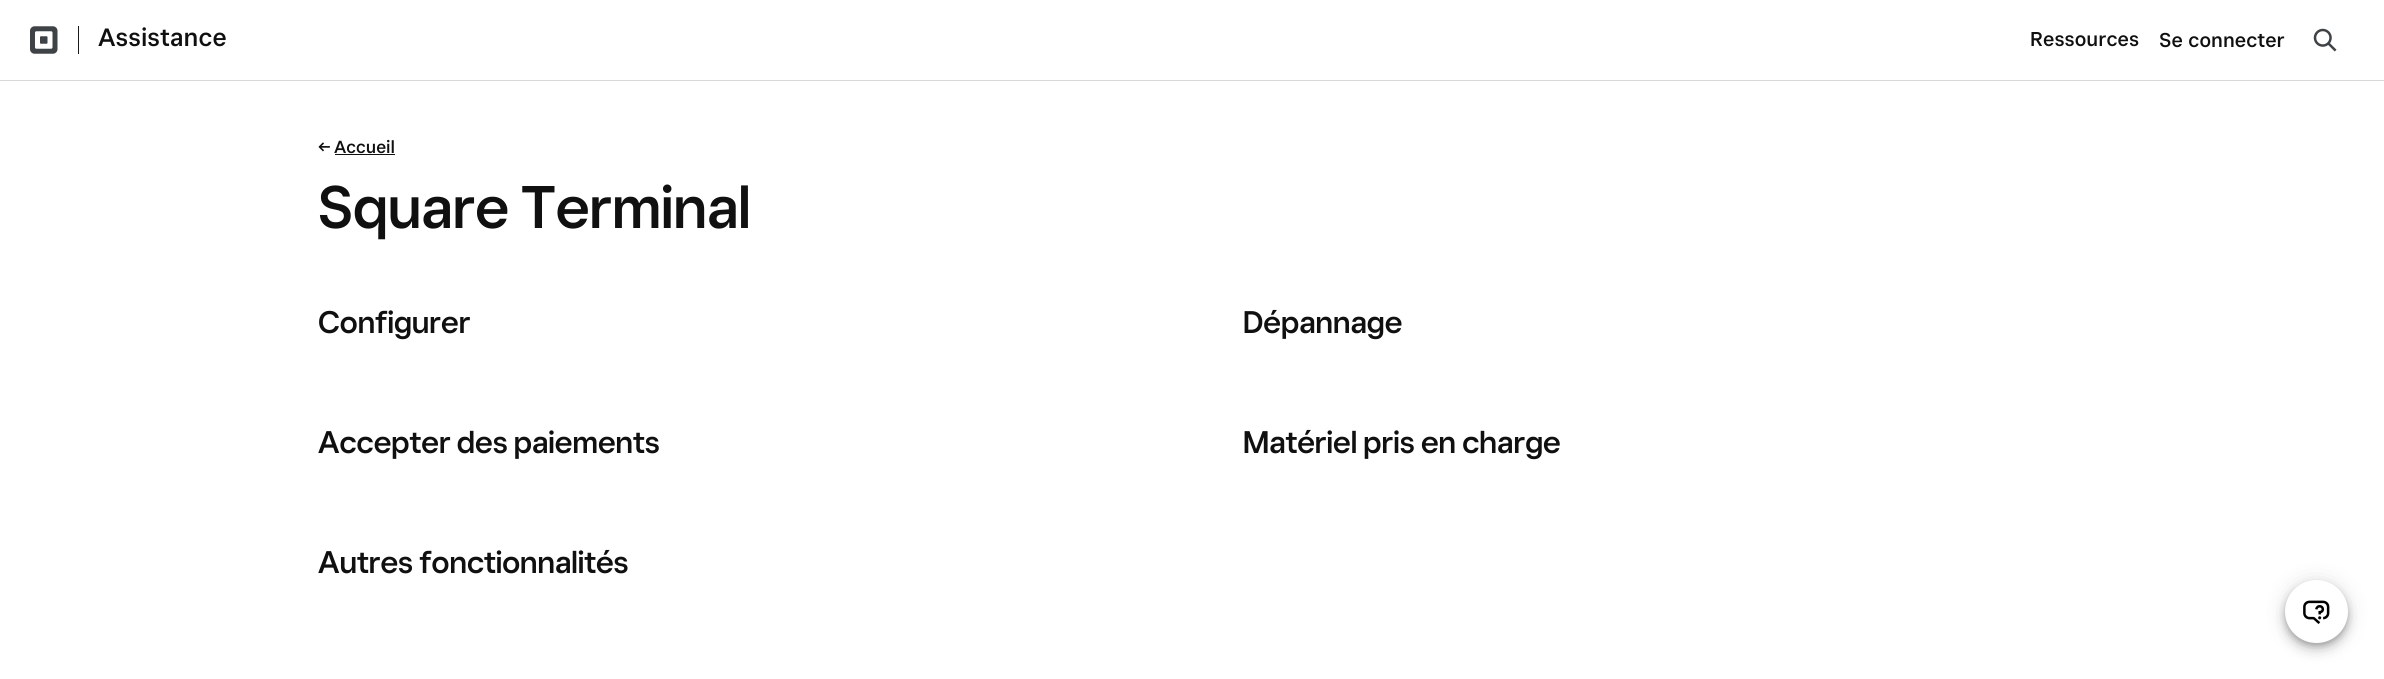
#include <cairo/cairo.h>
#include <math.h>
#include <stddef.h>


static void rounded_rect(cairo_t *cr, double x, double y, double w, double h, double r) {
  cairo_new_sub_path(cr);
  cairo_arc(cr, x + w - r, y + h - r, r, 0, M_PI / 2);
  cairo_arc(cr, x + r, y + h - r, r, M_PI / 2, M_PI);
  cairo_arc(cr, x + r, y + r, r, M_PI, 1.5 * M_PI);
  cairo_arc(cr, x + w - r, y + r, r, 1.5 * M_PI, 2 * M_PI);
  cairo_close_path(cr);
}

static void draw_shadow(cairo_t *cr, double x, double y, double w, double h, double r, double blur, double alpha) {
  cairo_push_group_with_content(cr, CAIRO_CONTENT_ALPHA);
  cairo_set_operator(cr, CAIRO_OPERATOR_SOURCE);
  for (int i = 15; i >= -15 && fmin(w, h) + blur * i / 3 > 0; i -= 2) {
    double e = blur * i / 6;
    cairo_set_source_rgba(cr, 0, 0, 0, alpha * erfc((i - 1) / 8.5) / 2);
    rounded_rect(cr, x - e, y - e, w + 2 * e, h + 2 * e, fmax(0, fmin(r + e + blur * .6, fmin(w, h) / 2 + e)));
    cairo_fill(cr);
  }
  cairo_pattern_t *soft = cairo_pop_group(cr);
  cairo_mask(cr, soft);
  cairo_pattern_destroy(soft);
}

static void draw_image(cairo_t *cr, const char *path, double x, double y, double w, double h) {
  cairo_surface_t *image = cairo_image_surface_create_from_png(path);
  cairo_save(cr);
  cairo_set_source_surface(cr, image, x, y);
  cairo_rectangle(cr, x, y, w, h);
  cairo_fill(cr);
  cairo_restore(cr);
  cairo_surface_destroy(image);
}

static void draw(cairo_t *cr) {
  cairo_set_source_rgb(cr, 1, 1, 1);
  cairo_paint(cr);
  cairo_set_source_rgb(cr, 217 / 255.0, 217 / 255.0, 217 / 255.0);
  cairo_rectangle(cr, 0, 80, 2384, 1);
  cairo_fill(cr);
  draw_image(cr, "images/1.png", 30, 26, 28, 28);
  cairo_set_source_rgb(cr, 26 / 255.0, 26 / 255.0, 26 / 255.0);
  cairo_rectangle(cr, 78, 26, 1, 28);
  cairo_fill(cr);
  draw_image(cr, "images/2.png", 2313, 28, 24, 24);
  cairo_set_source_rgb(cr, 16 / 255.0, 16 / 255.0, 16 / 255.0);
  cairo_rectangle(cr, 335, 154, 60, 1);
  cairo_fill(cr);
  cairo_set_source_rgb(cr, 0, 0, 0);
  draw_shadow(cr, 2285, 581, 63, 63, 31.5, 11, 0.12);
  draw_shadow(cr, 2285, 584, 63, 62, 31, 3, 0.2);
  draw_shadow(cr, 2285, 588, 63, 62, 31, 6, 0.14);
  cairo_set_source_rgb(cr, 1, 1, 1);
  cairo_arc(cr, 2316.5, 611.5, 31.5, 0, 2 * M_PI);
  cairo_fill(cr);
  draw_image(cr, "images/3.png", 2303, 600, 27, 24);
  cairo_select_font_face(cr, "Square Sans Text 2 Medium", CAIRO_FONT_SLANT_NORMAL, CAIRO_FONT_WEIGHT_NORMAL);
  cairo_set_font_size(cr, 25);
  cairo_set_source_rgb(cr, 16 / 255.0, 16 / 255.0, 16 / 255.0);
  cairo_move_to(cr, 98, 46);
  cairo_show_text(cr, "Assistance");
  cairo_set_font_size(cr, 20);
  cairo_move_to(cr, 2030, 46);
  cairo_show_text(cr, "Ressources");
  cairo_move_to(cr, 2159, 47);
  cairo_show_text(cr, "Se connecter");
  cairo_select_font_face(cr, "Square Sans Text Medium", CAIRO_FONT_SLANT_NORMAL, CAIRO_FONT_WEIGHT_NORMAL);
  cairo_set_font_size(cr, 17.5);
  cairo_move_to(cr, 318, 153);
  cairo_show_text(cr, "←");
  cairo_move_to(cr, 334, 153);
  cairo_show_text(cr, "Accueil");
  cairo_select_font_face(cr, "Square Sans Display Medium", CAIRO_FONT_SLANT_NORMAL, CAIRO_FONT_WEIGHT_NORMAL);
  cairo_set_font_size(cr, 60);
  cairo_move_to(cr, 318, 228);
  cairo_show_text(cr, "Square Terminal");
  cairo_set_font_size(cr, 31.25);
  cairo_move_to(cr, 318, 333);
  cairo_show_text(cr, "Configurer");
  cairo_move_to(cr, 1243, 333);
  cairo_show_text(cr, "Dépannage");
  cairo_move_to(cr, 318, 453);
  cairo_show_text(cr, "Accepter des paiements");
  cairo_move_to(cr, 1243, 453);
  cairo_show_text(cr, "Matériel pris en charge");
  cairo_move_to(cr, 318, 573);
  cairo_show_text(cr, "Autres fonctionnalités");
}

int main(void) {
  cairo_surface_t *surface = cairo_image_surface_create(CAIRO_FORMAT_RGB24, 2384, 679);
  cairo_t *cr = cairo_create(surface);
  cairo_font_options_t *options = cairo_font_options_create();
  cairo_font_options_set_hint_metrics(options, CAIRO_HINT_METRICS_OFF);
  cairo_font_options_set_hint_style(options, CAIRO_HINT_STYLE_NONE);
  cairo_set_font_options(cr, options);
  cairo_set_miter_limit(cr, 4);
  draw(cr);
  cairo_surface_write_to_png(surface, "out.png");
  cairo_font_options_destroy(options);
  cairo_destroy(cr);
  cairo_surface_destroy(surface);
  return 0;
}
